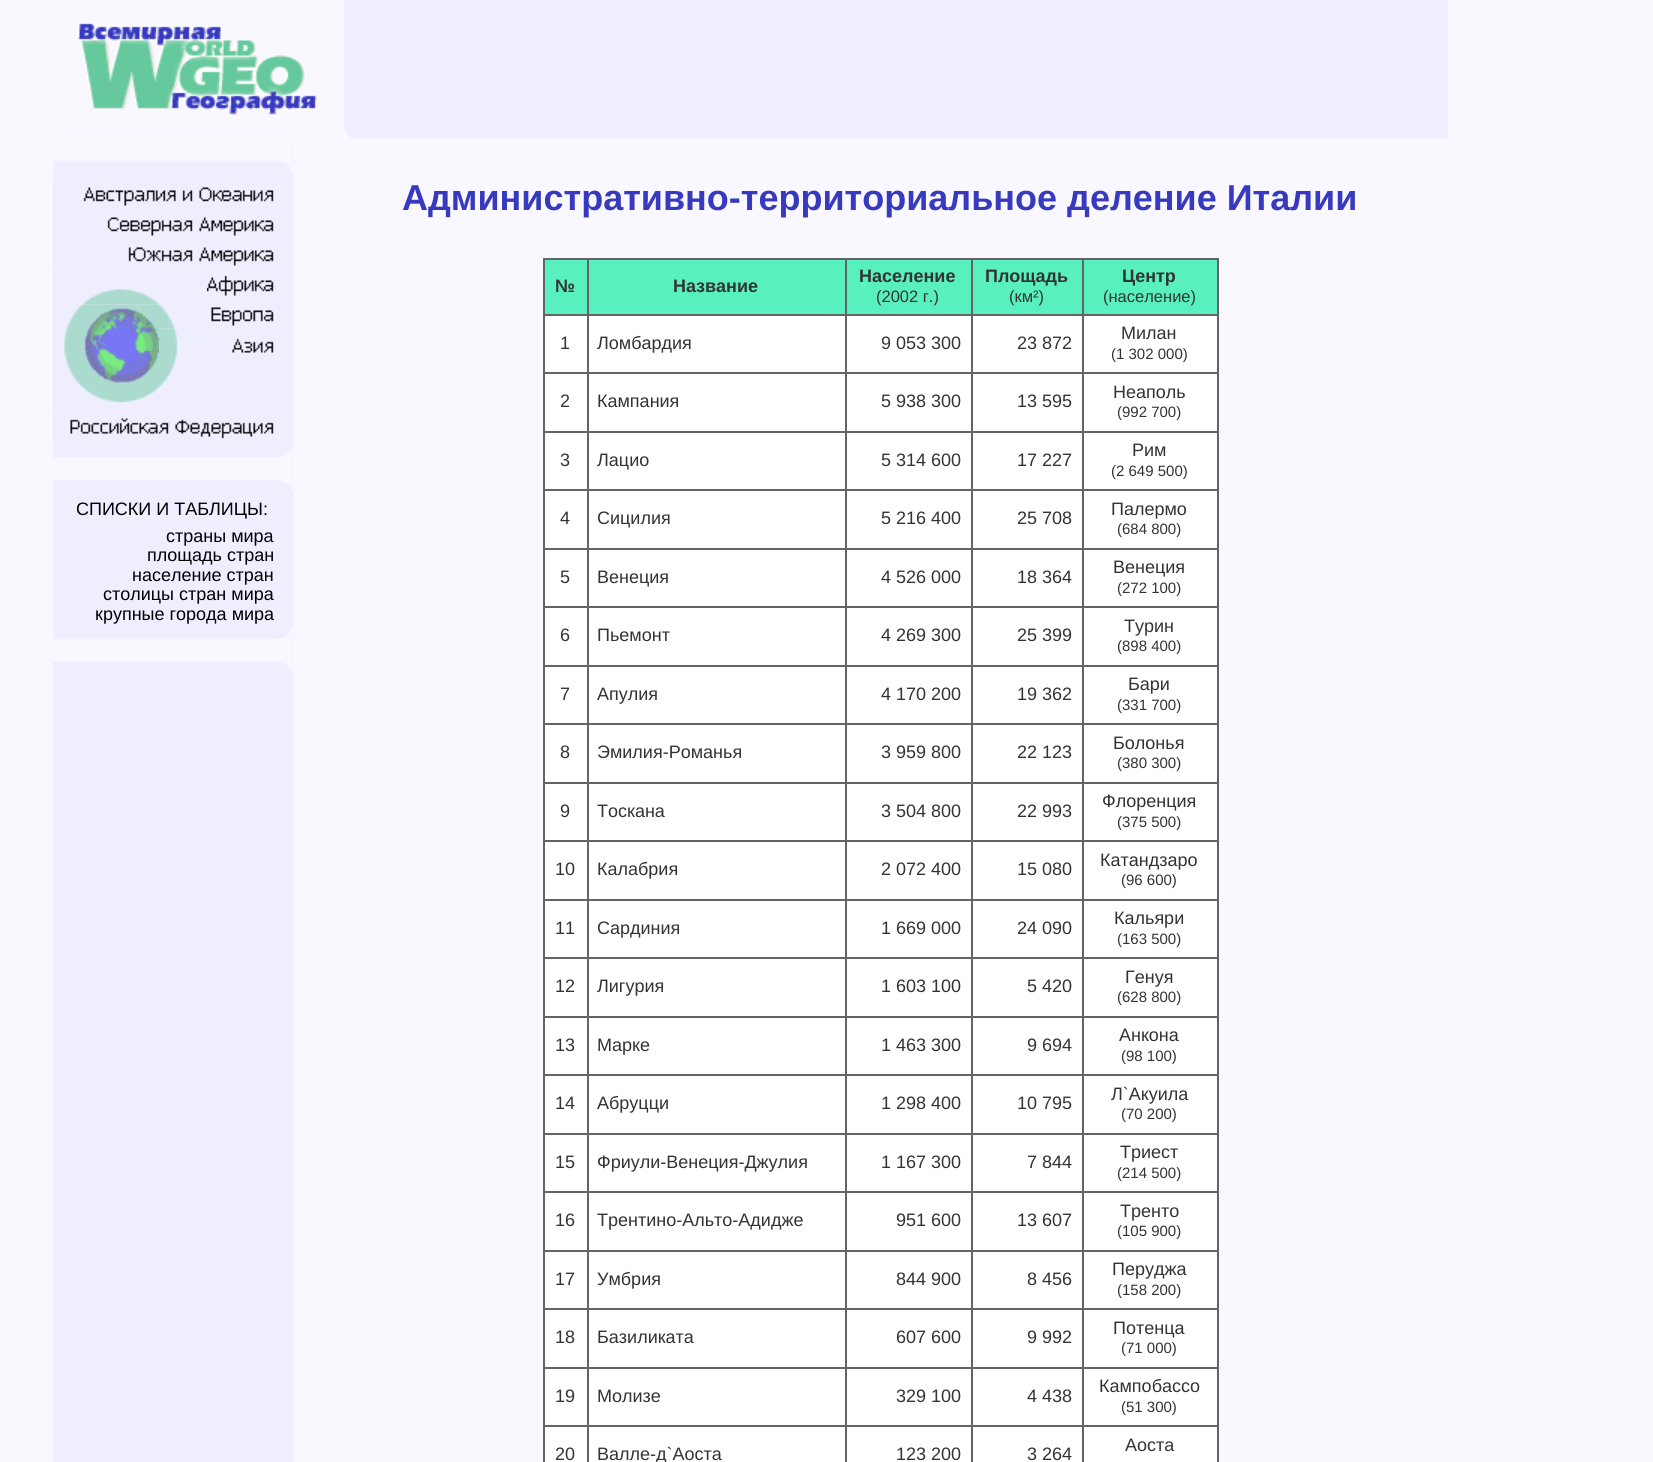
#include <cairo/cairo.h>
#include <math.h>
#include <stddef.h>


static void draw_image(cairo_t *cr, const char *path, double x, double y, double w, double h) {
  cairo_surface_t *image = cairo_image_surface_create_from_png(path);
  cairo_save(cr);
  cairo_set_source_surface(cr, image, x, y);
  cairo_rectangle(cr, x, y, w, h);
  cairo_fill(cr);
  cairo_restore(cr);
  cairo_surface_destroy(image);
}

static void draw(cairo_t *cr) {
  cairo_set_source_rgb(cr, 249 / 255.0, 247 / 255.0, 1);
  cairo_paint(cr);
  draw_image(cr, "images/1.png", 77, 23, 240, 92);
  cairo_set_source_rgb(cr, 238 / 255.0, 238 / 255.0, 1);
  cairo_rectangle(cr, 344, 0, 1104, 138);
  cairo_fill(cr);
  draw_image(cr, "images/2.png", 343, 126, 8, 12);
  cairo_rectangle(cr, 53, 138, 240, 1324);
  cairo_fill(cr);
  draw_image(cr, "images/3.png", 53, 138, 240, 34);
  cairo_set_source_rgb(cr, 243 / 255.0, 242 / 255.0, 1);
  cairo_rectangle(cr, 52, 182, 1, 86);
  cairo_fill(cr);
  draw_image(cr, "images/4.png", 83, 187, 191, 19);
  draw_image(cr, "images/5.png", 107, 217, 167, 19);
  draw_image(cr, "images/6.png", 128, 247, 146, 19);
  draw_image(cr, "images/7.png", 52, 269, 107, 36);
  draw_image(cr, "images/8.png", 207, 275, 67, 21);
  draw_image(cr, "images/9.png", 159, 304, 16, 25);
  draw_image(cr, "images/10.png", 52, 304, 32, 83);
  cairo_set_source_rgb(cr, 170 / 255.0, 219 / 255.0, 206 / 255.0);
  cairo_rectangle(cr, 84, 383, 75, 4);
  cairo_fill(cr);
  draw_image(cr, "images/11.png", 84, 304, 75, 79);
  draw_image(cr, "images/12.png", 211, 307, 63, 19);
  draw_image(cr, "images/13.png", 159, 328, 19, 60);
  draw_image(cr, "images/14.png", 232, 338, 42, 15);
  draw_image(cr, "images/15.png", 52, 387, 107, 25);
  cairo_set_source_rgb(cr, 243 / 255.0, 242 / 255.0, 1);
  cairo_rectangle(cr, 52, 413, 1, 29);
  cairo_fill(cr);
  draw_image(cr, "images/16.png", 70, 418, 204, 21);
  draw_image(cr, "images/17.png", 53, 446, 240, 45);
  draw_image(cr, "images/18.png", 53, 628, 240, 45);
  cairo_set_source_rgb(cr, 1, 1, 1);
  cairo_rectangle(cr, 545, 316, 672, 1146);
  cairo_fill(cr);
  cairo_set_source_rgb(cr, 100 / 255.0, 100 / 255.0, 100 / 255.0);
  cairo_rectangle(cr, 543, 258, 675, 2);
  cairo_fill(cr);
  cairo_rectangle(cr, 1217, 258, 2, 1204);
  cairo_fill(cr);
  cairo_rectangle(cr, 543, 258, 2, 1204);
  cairo_fill(cr);
  cairo_set_source_rgb(cr, 87 / 255.0, 240 / 255.0, 190 / 255.0);
  cairo_rectangle(cr, 545, 260, 672, 54);
  cairo_fill(cr);
  cairo_set_source_rgb(cr, 100 / 255.0, 100 / 255.0, 100 / 255.0);
  cairo_rectangle(cr, 1082, 314, 136, 2);
  cairo_fill(cr);
  cairo_rectangle(cr, 1082, 372, 136, 2);
  cairo_fill(cr);
  cairo_rectangle(cr, 1082, 431, 136, 2);
  cairo_fill(cr);
  cairo_rectangle(cr, 1082, 489, 136, 2);
  cairo_fill(cr);
  cairo_rectangle(cr, 1082, 548, 136, 2);
  cairo_fill(cr);
  cairo_rectangle(cr, 1082, 606, 136, 2);
  cairo_fill(cr);
  cairo_rectangle(cr, 1082, 665, 136, 2);
  cairo_fill(cr);
  cairo_rectangle(cr, 1082, 723, 136, 2);
  cairo_fill(cr);
  cairo_rectangle(cr, 1082, 782, 136, 2);
  cairo_fill(cr);
  cairo_rectangle(cr, 1082, 840, 136, 2);
  cairo_fill(cr);
  cairo_rectangle(cr, 1082, 899, 136, 2);
  cairo_fill(cr);
  cairo_rectangle(cr, 1082, 957, 136, 2);
  cairo_fill(cr);
  cairo_rectangle(cr, 1082, 1016, 136, 2);
  cairo_fill(cr);
  cairo_rectangle(cr, 1082, 1074, 136, 2);
  cairo_fill(cr);
  cairo_rectangle(cr, 1082, 1133, 136, 2);
  cairo_fill(cr);
  cairo_rectangle(cr, 1082, 1191, 136, 2);
  cairo_fill(cr);
  cairo_rectangle(cr, 1082, 1250, 136, 2);
  cairo_fill(cr);
  cairo_rectangle(cr, 1082, 1308, 136, 2);
  cairo_fill(cr);
  cairo_rectangle(cr, 1082, 1367, 136, 2);
  cairo_fill(cr);
  cairo_rectangle(cr, 1082, 1425, 136, 2);
  cairo_fill(cr);
  cairo_rectangle(cr, 1082, 1425, 2, 37);
  cairo_fill(cr);
  cairo_rectangle(cr, 971, 1425, 112, 2);
  cairo_fill(cr);
  cairo_rectangle(cr, 1082, 1367, 2, 60);
  cairo_fill(cr);
  cairo_rectangle(cr, 971, 1367, 112, 2);
  cairo_fill(cr);
  cairo_rectangle(cr, 1082, 1308, 2, 60);
  cairo_fill(cr);
  cairo_rectangle(cr, 971, 1308, 112, 2);
  cairo_fill(cr);
  cairo_rectangle(cr, 1082, 1250, 2, 60);
  cairo_fill(cr);
  cairo_rectangle(cr, 971, 1250, 112, 2);
  cairo_fill(cr);
  cairo_rectangle(cr, 1082, 1191, 2, 60);
  cairo_fill(cr);
  cairo_rectangle(cr, 971, 1191, 112, 2);
  cairo_fill(cr);
  cairo_rectangle(cr, 1082, 1133, 2, 60);
  cairo_fill(cr);
  cairo_rectangle(cr, 971, 1133, 112, 2);
  cairo_fill(cr);
  cairo_rectangle(cr, 1082, 1074, 2, 60);
  cairo_fill(cr);
  cairo_rectangle(cr, 971, 1074, 112, 2);
  cairo_fill(cr);
  cairo_rectangle(cr, 1082, 1016, 2, 60);
  cairo_fill(cr);
  cairo_rectangle(cr, 971, 1016, 112, 2);
  cairo_fill(cr);
  cairo_rectangle(cr, 1082, 957, 2, 60);
  cairo_fill(cr);
  cairo_rectangle(cr, 971, 957, 112, 2);
  cairo_fill(cr);
  cairo_rectangle(cr, 1082, 899, 2, 60);
  cairo_fill(cr);
  cairo_rectangle(cr, 971, 899, 112, 2);
  cairo_fill(cr);
  cairo_rectangle(cr, 1082, 840, 2, 60);
  cairo_fill(cr);
  cairo_rectangle(cr, 971, 840, 112, 2);
  cairo_fill(cr);
  cairo_rectangle(cr, 1082, 782, 2, 60);
  cairo_fill(cr);
  cairo_rectangle(cr, 971, 782, 112, 2);
  cairo_fill(cr);
  cairo_rectangle(cr, 1082, 723, 2, 60);
  cairo_fill(cr);
  cairo_rectangle(cr, 971, 723, 112, 2);
  cairo_fill(cr);
  cairo_rectangle(cr, 1082, 665, 2, 60);
  cairo_fill(cr);
  cairo_rectangle(cr, 971, 665, 112, 2);
  cairo_fill(cr);
  cairo_rectangle(cr, 1082, 606, 2, 60);
  cairo_fill(cr);
  cairo_rectangle(cr, 971, 606, 112, 2);
  cairo_fill(cr);
  cairo_rectangle(cr, 1082, 548, 2, 60);
  cairo_fill(cr);
  cairo_rectangle(cr, 971, 548, 112, 2);
  cairo_fill(cr);
  cairo_rectangle(cr, 1082, 489, 2, 60);
  cairo_fill(cr);
  cairo_rectangle(cr, 971, 489, 112, 2);
  cairo_fill(cr);
  cairo_rectangle(cr, 1082, 431, 2, 60);
  cairo_fill(cr);
  cairo_rectangle(cr, 971, 431, 112, 2);
  cairo_fill(cr);
  cairo_rectangle(cr, 1082, 372, 2, 60);
  cairo_fill(cr);
  cairo_rectangle(cr, 971, 372, 112, 2);
  cairo_fill(cr);
  cairo_rectangle(cr, 1082, 314, 2, 60);
  cairo_fill(cr);
  cairo_rectangle(cr, 971, 314, 112, 2);
  cairo_fill(cr);
  cairo_rectangle(cr, 971, 1425, 2, 37);
  cairo_fill(cr);
  cairo_rectangle(cr, 845, 1425, 127, 2);
  cairo_fill(cr);
  cairo_rectangle(cr, 971, 1367, 2, 60);
  cairo_fill(cr);
  cairo_rectangle(cr, 845, 1367, 127, 2);
  cairo_fill(cr);
  cairo_rectangle(cr, 971, 1308, 2, 60);
  cairo_fill(cr);
  cairo_rectangle(cr, 845, 1308, 127, 2);
  cairo_fill(cr);
  cairo_rectangle(cr, 971, 1250, 2, 60);
  cairo_fill(cr);
  cairo_rectangle(cr, 845, 1250, 127, 2);
  cairo_fill(cr);
  cairo_rectangle(cr, 971, 1191, 2, 60);
  cairo_fill(cr);
  cairo_rectangle(cr, 845, 1191, 127, 2);
  cairo_fill(cr);
  cairo_rectangle(cr, 971, 1133, 2, 60);
  cairo_fill(cr);
  cairo_rectangle(cr, 845, 1133, 127, 2);
  cairo_fill(cr);
  cairo_rectangle(cr, 971, 1074, 2, 60);
  cairo_fill(cr);
  cairo_rectangle(cr, 845, 1074, 127, 2);
  cairo_fill(cr);
  cairo_rectangle(cr, 971, 1016, 2, 60);
  cairo_fill(cr);
  cairo_rectangle(cr, 845, 1016, 127, 2);
  cairo_fill(cr);
  cairo_rectangle(cr, 971, 957, 2, 60);
  cairo_fill(cr);
  cairo_rectangle(cr, 845, 957, 127, 2);
  cairo_fill(cr);
  cairo_rectangle(cr, 971, 899, 2, 60);
  cairo_fill(cr);
  cairo_rectangle(cr, 845, 899, 127, 2);
  cairo_fill(cr);
  cairo_rectangle(cr, 971, 840, 2, 60);
  cairo_fill(cr);
  cairo_rectangle(cr, 845, 840, 127, 2);
  cairo_fill(cr);
  cairo_rectangle(cr, 971, 782, 2, 60);
  cairo_fill(cr);
  cairo_rectangle(cr, 845, 782, 127, 2);
  cairo_fill(cr);
  cairo_rectangle(cr, 971, 723, 2, 60);
  cairo_fill(cr);
  cairo_rectangle(cr, 845, 723, 127, 2);
  cairo_fill(cr);
  cairo_rectangle(cr, 971, 665, 2, 60);
  cairo_fill(cr);
  cairo_rectangle(cr, 845, 665, 127, 2);
  cairo_fill(cr);
  cairo_rectangle(cr, 971, 606, 2, 60);
  cairo_fill(cr);
  cairo_rectangle(cr, 845, 606, 127, 2);
  cairo_fill(cr);
  cairo_rectangle(cr, 971, 548, 2, 60);
  cairo_fill(cr);
  cairo_rectangle(cr, 845, 548, 127, 2);
  cairo_fill(cr);
  cairo_rectangle(cr, 971, 489, 2, 60);
  cairo_fill(cr);
  cairo_rectangle(cr, 845, 489, 127, 2);
  cairo_fill(cr);
  cairo_rectangle(cr, 971, 431, 2, 60);
  cairo_fill(cr);
  cairo_rectangle(cr, 845, 431, 127, 2);
  cairo_fill(cr);
  cairo_rectangle(cr, 971, 372, 2, 60);
  cairo_fill(cr);
  cairo_rectangle(cr, 845, 372, 127, 2);
  cairo_fill(cr);
  cairo_rectangle(cr, 971, 314, 2, 60);
  cairo_fill(cr);
  cairo_rectangle(cr, 845, 314, 127, 2);
  cairo_fill(cr);
  cairo_rectangle(cr, 845, 1425, 2, 37);
  cairo_fill(cr);
  cairo_rectangle(cr, 587, 1425, 259, 2);
  cairo_fill(cr);
  cairo_rectangle(cr, 845, 1367, 2, 60);
  cairo_fill(cr);
  cairo_rectangle(cr, 587, 1367, 259, 2);
  cairo_fill(cr);
  cairo_rectangle(cr, 845, 1308, 2, 60);
  cairo_fill(cr);
  cairo_rectangle(cr, 587, 1308, 259, 2);
  cairo_fill(cr);
  cairo_rectangle(cr, 845, 1250, 2, 60);
  cairo_fill(cr);
  cairo_rectangle(cr, 587, 1250, 259, 2);
  cairo_fill(cr);
  cairo_rectangle(cr, 845, 1191, 2, 60);
  cairo_fill(cr);
  cairo_rectangle(cr, 587, 1191, 259, 2);
  cairo_fill(cr);
  cairo_rectangle(cr, 845, 1133, 2, 60);
  cairo_fill(cr);
  cairo_rectangle(cr, 587, 1133, 259, 2);
  cairo_fill(cr);
  cairo_rectangle(cr, 845, 1074, 2, 60);
  cairo_fill(cr);
  cairo_rectangle(cr, 587, 1074, 259, 2);
  cairo_fill(cr);
  cairo_rectangle(cr, 845, 1016, 2, 60);
  cairo_fill(cr);
  cairo_rectangle(cr, 587, 1016, 259, 2);
  cairo_fill(cr);
  cairo_rectangle(cr, 845, 957, 2, 60);
  cairo_fill(cr);
  cairo_rectangle(cr, 587, 957, 259, 2);
  cairo_fill(cr);
  cairo_rectangle(cr, 845, 899, 2, 60);
  cairo_fill(cr);
  cairo_rectangle(cr, 587, 899, 259, 2);
  cairo_fill(cr);
  cairo_rectangle(cr, 845, 840, 2, 60);
  cairo_fill(cr);
  cairo_rectangle(cr, 587, 840, 259, 2);
  cairo_fill(cr);
  cairo_rectangle(cr, 845, 782, 2, 60);
  cairo_fill(cr);
  cairo_rectangle(cr, 587, 782, 259, 2);
  cairo_fill(cr);
  cairo_rectangle(cr, 845, 723, 2, 60);
  cairo_fill(cr);
  cairo_rectangle(cr, 587, 723, 259, 2);
  cairo_fill(cr);
  cairo_rectangle(cr, 845, 665, 2, 60);
  cairo_fill(cr);
  cairo_rectangle(cr, 587, 665, 259, 2);
  cairo_fill(cr);
  cairo_rectangle(cr, 845, 606, 2, 60);
  cairo_fill(cr);
  cairo_rectangle(cr, 587, 606, 259, 2);
  cairo_fill(cr);
  cairo_rectangle(cr, 845, 548, 2, 60);
  cairo_fill(cr);
  cairo_rectangle(cr, 587, 548, 259, 2);
  cairo_fill(cr);
  cairo_rectangle(cr, 845, 489, 2, 60);
  cairo_fill(cr);
  cairo_rectangle(cr, 587, 489, 259, 2);
  cairo_fill(cr);
  cairo_rectangle(cr, 845, 431, 2, 60);
  cairo_fill(cr);
  cairo_rectangle(cr, 587, 431, 259, 2);
  cairo_fill(cr);
  cairo_rectangle(cr, 845, 372, 2, 60);
  cairo_fill(cr);
  cairo_rectangle(cr, 587, 372, 259, 2);
  cairo_fill(cr);
  cairo_rectangle(cr, 845, 314, 2, 60);
  cairo_fill(cr);
  cairo_rectangle(cr, 587, 314, 259, 2);
  cairo_fill(cr);
  cairo_rectangle(cr, 587, 1425, 2, 37);
  cairo_fill(cr);
  cairo_rectangle(cr, 543, 1425, 45, 2);
  cairo_fill(cr);
  cairo_rectangle(cr, 587, 1367, 2, 60);
  cairo_fill(cr);
  cairo_rectangle(cr, 543, 1367, 45, 2);
  cairo_fill(cr);
  cairo_rectangle(cr, 587, 1308, 2, 60);
  cairo_fill(cr);
  cairo_rectangle(cr, 543, 1308, 45, 2);
  cairo_fill(cr);
  cairo_rectangle(cr, 587, 1250, 2, 60);
  cairo_fill(cr);
  cairo_rectangle(cr, 543, 1250, 45, 2);
  cairo_fill(cr);
  cairo_rectangle(cr, 587, 1191, 2, 60);
  cairo_fill(cr);
  cairo_rectangle(cr, 543, 1191, 45, 2);
  cairo_fill(cr);
  cairo_rectangle(cr, 587, 1133, 2, 60);
  cairo_fill(cr);
  cairo_rectangle(cr, 543, 1133, 45, 2);
  cairo_fill(cr);
  cairo_rectangle(cr, 587, 1074, 2, 60);
  cairo_fill(cr);
  cairo_rectangle(cr, 543, 1074, 45, 2);
  cairo_fill(cr);
  cairo_rectangle(cr, 587, 1016, 2, 60);
  cairo_fill(cr);
  cairo_rectangle(cr, 543, 1016, 45, 2);
  cairo_fill(cr);
  cairo_rectangle(cr, 587, 957, 2, 60);
  cairo_fill(cr);
  cairo_rectangle(cr, 543, 957, 45, 2);
  cairo_fill(cr);
  cairo_rectangle(cr, 587, 899, 2, 60);
  cairo_fill(cr);
  cairo_rectangle(cr, 543, 899, 45, 2);
  cairo_fill(cr);
  cairo_rectangle(cr, 587, 840, 2, 60);
  cairo_fill(cr);
  cairo_rectangle(cr, 543, 840, 45, 2);
  cairo_fill(cr);
  cairo_rectangle(cr, 587, 782, 2, 60);
  cairo_fill(cr);
  cairo_rectangle(cr, 543, 782, 45, 2);
  cairo_fill(cr);
  cairo_rectangle(cr, 587, 723, 2, 60);
  cairo_fill(cr);
  cairo_rectangle(cr, 543, 723, 45, 2);
  cairo_fill(cr);
  cairo_rectangle(cr, 587, 665, 2, 60);
  cairo_fill(cr);
  cairo_rectangle(cr, 543, 665, 45, 2);
  cairo_fill(cr);
  cairo_rectangle(cr, 587, 606, 2, 60);
  cairo_fill(cr);
  cairo_rectangle(cr, 543, 606, 45, 2);
  cairo_fill(cr);
  cairo_rectangle(cr, 587, 548, 2, 60);
  cairo_fill(cr);
  cairo_rectangle(cr, 543, 548, 45, 2);
  cairo_fill(cr);
  cairo_rectangle(cr, 587, 489, 2, 60);
  cairo_fill(cr);
  cairo_rectangle(cr, 543, 489, 45, 2);
  cairo_fill(cr);
  cairo_rectangle(cr, 587, 431, 2, 60);
  cairo_fill(cr);
  cairo_rectangle(cr, 543, 431, 45, 2);
  cairo_fill(cr);
  cairo_rectangle(cr, 587, 372, 2, 60);
  cairo_fill(cr);
  cairo_rectangle(cr, 543, 372, 45, 2);
  cairo_fill(cr);
  cairo_rectangle(cr, 587, 314, 2, 60);
  cairo_fill(cr);
  cairo_rectangle(cr, 543, 314, 45, 2);
  cairo_fill(cr);
  cairo_rectangle(cr, 587, 258, 2, 57);
  cairo_fill(cr);
  cairo_rectangle(cr, 845, 258, 2, 57);
  cairo_fill(cr);
  cairo_rectangle(cr, 971, 258, 2, 57);
  cairo_fill(cr);
  cairo_rectangle(cr, 1082, 258, 2, 57);
  cairo_fill(cr);
  cairo_select_font_face(cr, "Liberation Sans", CAIRO_FONT_SLANT_NORMAL, CAIRO_FONT_WEIGHT_NORMAL);
  cairo_set_font_size(cr, 18);
  cairo_set_source_rgb(cr, 0, 0, 0);
  cairo_move_to(cr, 76, 515);
  cairo_show_text(cr, "СПИСКИ И ТАБЛИЦЫ:");
  cairo_move_to(cr, 166, 542);
  cairo_show_text(cr, "страны мира");
  cairo_move_to(cr, 147, 561);
  cairo_show_text(cr, "площадь стран");
  cairo_move_to(cr, 132, 581);
  cairo_show_text(cr, "население стран");
  cairo_move_to(cr, 103, 600);
  cairo_show_text(cr, "столицы стран мира");
  cairo_move_to(cr, 95, 620);
  cairo_show_text(cr, "крупные города мира");
  cairo_select_font_face(cr, "Liberation Sans", CAIRO_FONT_SLANT_NORMAL, CAIRO_FONT_WEIGHT_BOLD);
  cairo_set_font_size(cr, 36);
  cairo_set_source_rgb(cr, 55 / 255.0, 58 / 255.0, 190 / 255.0);
  cairo_move_to(cr, 402, 210);
  cairo_show_text(cr, "Административно-территориальное деление Италии");
  cairo_set_font_size(cr, 18);
  cairo_set_source_rgb(cr, 51 / 255.0, 51 / 255.0, 51 / 255.0);
  cairo_move_to(cr, 555, 292);
  cairo_show_text(cr, "№");
  cairo_move_to(cr, 673, 292);
  cairo_show_text(cr, "Название");
  cairo_move_to(cr, 859, 282);
  cairo_show_text(cr, "Население");
  cairo_select_font_face(cr, "Liberation Sans", CAIRO_FONT_SLANT_NORMAL, CAIRO_FONT_WEIGHT_NORMAL);
  cairo_set_font_size(cr, 16.5);
  cairo_move_to(cr, 876, 302);
  cairo_show_text(cr, "(2002 г.)");
  cairo_select_font_face(cr, "Liberation Sans", CAIRO_FONT_SLANT_NORMAL, CAIRO_FONT_WEIGHT_BOLD);
  cairo_set_font_size(cr, 18);
  cairo_move_to(cr, 985, 282);
  cairo_show_text(cr, "Площадь");
  cairo_select_font_face(cr, "Liberation Sans", CAIRO_FONT_SLANT_NORMAL, CAIRO_FONT_WEIGHT_NORMAL);
  cairo_set_font_size(cr, 16.5);
  cairo_move_to(cr, 1009, 302);
  cairo_show_text(cr, "(км²)");
  cairo_select_font_face(cr, "Liberation Sans", CAIRO_FONT_SLANT_NORMAL, CAIRO_FONT_WEIGHT_BOLD);
  cairo_set_font_size(cr, 18);
  cairo_move_to(cr, 1122, 282);
  cairo_show_text(cr, "Центр");
  cairo_select_font_face(cr, "Liberation Sans", CAIRO_FONT_SLANT_NORMAL, CAIRO_FONT_WEIGHT_NORMAL);
  cairo_set_font_size(cr, 16.5);
  cairo_move_to(cr, 1103, 302);
  cairo_show_text(cr, "(население)");
  cairo_set_font_size(cr, 18);
  cairo_move_to(cr, 560, 349);
  cairo_show_text(cr, "1");
  cairo_move_to(cr, 597, 349);
  cairo_show_text(cr, "Ломбардия");
  cairo_move_to(cr, 881, 349);
  cairo_show_text(cr, "9 053 300");
  cairo_move_to(cr, 1017, 349);
  cairo_show_text(cr, "23 872");
  cairo_move_to(cr, 1121, 339);
  cairo_show_text(cr, "Милан");
  cairo_set_font_size(cr, 15);
  cairo_move_to(cr, 1111, 359);
  cairo_show_text(cr, "(1 302 000)");
  cairo_set_font_size(cr, 18);
  cairo_move_to(cr, 560, 407);
  cairo_show_text(cr, "2");
  cairo_move_to(cr, 597, 407);
  cairo_show_text(cr, "Кампания");
  cairo_move_to(cr, 881, 407);
  cairo_show_text(cr, "5 938 300");
  cairo_move_to(cr, 1017, 407);
  cairo_show_text(cr, "13 595");
  cairo_move_to(cr, 1113, 398);
  cairo_show_text(cr, "Неаполь");
  cairo_set_font_size(cr, 15);
  cairo_move_to(cr, 1117, 417);
  cairo_show_text(cr, "(992 700)");
  cairo_set_font_size(cr, 18);
  cairo_move_to(cr, 560, 466);
  cairo_show_text(cr, "3");
  cairo_move_to(cr, 597, 466);
  cairo_show_text(cr, "Лацио");
  cairo_move_to(cr, 881, 466);
  cairo_show_text(cr, "5 314 600");
  cairo_move_to(cr, 1017, 466);
  cairo_show_text(cr, "17 227");
  cairo_move_to(cr, 1132, 456);
  cairo_show_text(cr, "Рим");
  cairo_set_font_size(cr, 15);
  cairo_move_to(cr, 1111, 476);
  cairo_show_text(cr, "(2 649 500)");
  cairo_set_font_size(cr, 18);
  cairo_move_to(cr, 560, 524);
  cairo_show_text(cr, "4");
  cairo_move_to(cr, 597, 524);
  cairo_show_text(cr, "Сицилия");
  cairo_move_to(cr, 881, 524);
  cairo_show_text(cr, "5 216 400");
  cairo_move_to(cr, 1017, 524);
  cairo_show_text(cr, "25 708");
  cairo_move_to(cr, 1111, 515);
  cairo_show_text(cr, "Палермо");
  cairo_set_font_size(cr, 15);
  cairo_move_to(cr, 1117, 534);
  cairo_show_text(cr, "(684 800)");
  cairo_set_font_size(cr, 18);
  cairo_move_to(cr, 560, 583);
  cairo_show_text(cr, "5");
  cairo_move_to(cr, 597, 583);
  cairo_show_text(cr, "Венеция");
  cairo_move_to(cr, 881, 583);
  cairo_show_text(cr, "4 526 000");
  cairo_move_to(cr, 1017, 583);
  cairo_show_text(cr, "18 364");
  cairo_move_to(cr, 1113, 573);
  cairo_show_text(cr, "Венеция");
  cairo_set_font_size(cr, 15);
  cairo_move_to(cr, 1117, 593);
  cairo_show_text(cr, "(272 100)");
  cairo_set_font_size(cr, 18);
  cairo_move_to(cr, 560, 641);
  cairo_show_text(cr, "6");
  cairo_move_to(cr, 597, 641);
  cairo_show_text(cr, "Пьемонт");
  cairo_move_to(cr, 881, 641);
  cairo_show_text(cr, "4 269 300");
  cairo_move_to(cr, 1017, 641);
  cairo_show_text(cr, "25 399");
  cairo_move_to(cr, 1124, 632);
  cairo_show_text(cr, "Турин");
  cairo_set_font_size(cr, 15);
  cairo_move_to(cr, 1117, 651);
  cairo_show_text(cr, "(898 400)");
  cairo_set_font_size(cr, 18);
  cairo_move_to(cr, 560, 700);
  cairo_show_text(cr, "7");
  cairo_move_to(cr, 597, 700);
  cairo_show_text(cr, "Апулия");
  cairo_move_to(cr, 881, 700);
  cairo_show_text(cr, "4 170 200");
  cairo_move_to(cr, 1017, 700);
  cairo_show_text(cr, "19 362");
  cairo_move_to(cr, 1128, 690);
  cairo_show_text(cr, "Бари");
  cairo_set_font_size(cr, 15);
  cairo_move_to(cr, 1117, 710);
  cairo_show_text(cr, "(331 700)");
  cairo_set_font_size(cr, 18);
  cairo_move_to(cr, 560, 758);
  cairo_show_text(cr, "8");
  cairo_move_to(cr, 597, 758);
  cairo_show_text(cr, "Эмилия-Романья");
  cairo_move_to(cr, 881, 758);
  cairo_show_text(cr, "3 959 800");
  cairo_move_to(cr, 1017, 758);
  cairo_show_text(cr, "22 123");
  cairo_move_to(cr, 1113, 749);
  cairo_show_text(cr, "Болонья");
  cairo_set_font_size(cr, 15);
  cairo_move_to(cr, 1117, 768);
  cairo_show_text(cr, "(380 300)");
  cairo_set_font_size(cr, 18);
  cairo_move_to(cr, 560, 817);
  cairo_show_text(cr, "9");
  cairo_move_to(cr, 597, 817);
  cairo_show_text(cr, "Тоскана");
  cairo_move_to(cr, 881, 817);
  cairo_show_text(cr, "3 504 800");
  cairo_move_to(cr, 1017, 817);
  cairo_show_text(cr, "22 993");
  cairo_move_to(cr, 1102, 807);
  cairo_show_text(cr, "Флоренция");
  cairo_set_font_size(cr, 15);
  cairo_move_to(cr, 1117, 827);
  cairo_show_text(cr, "(375 500)");
  cairo_set_font_size(cr, 18);
  cairo_move_to(cr, 555, 875);
  cairo_show_text(cr, "10");
  cairo_move_to(cr, 597, 875);
  cairo_show_text(cr, "Калабрия");
  cairo_move_to(cr, 881, 875);
  cairo_show_text(cr, "2 072 400");
  cairo_move_to(cr, 1017, 875);
  cairo_show_text(cr, "15 080");
  cairo_move_to(cr, 1100, 866);
  cairo_show_text(cr, "Катандзаро");
  cairo_set_font_size(cr, 15);
  cairo_move_to(cr, 1121, 885);
  cairo_show_text(cr, "(96 600)");
  cairo_set_font_size(cr, 18);
  cairo_move_to(cr, 555, 934);
  cairo_show_text(cr, "11");
  cairo_move_to(cr, 597, 934);
  cairo_show_text(cr, "Сардиния");
  cairo_move_to(cr, 881, 934);
  cairo_show_text(cr, "1 669 000");
  cairo_move_to(cr, 1017, 934);
  cairo_show_text(cr, "24 090");
  cairo_move_to(cr, 1114, 924);
  cairo_show_text(cr, "Кальяри");
  cairo_set_font_size(cr, 15);
  cairo_move_to(cr, 1117, 944);
  cairo_show_text(cr, "(163 500)");
  cairo_set_font_size(cr, 18);
  cairo_move_to(cr, 555, 992);
  cairo_show_text(cr, "12");
  cairo_move_to(cr, 597, 992);
  cairo_show_text(cr, "Лигурия");
  cairo_move_to(cr, 881, 992);
  cairo_show_text(cr, "1 603 100");
  cairo_move_to(cr, 1027, 992);
  cairo_show_text(cr, "5 420");
  cairo_move_to(cr, 1125, 983);
  cairo_show_text(cr, "Генуя");
  cairo_set_font_size(cr, 15);
  cairo_move_to(cr, 1117, 1002);
  cairo_show_text(cr, "(628 800)");
  cairo_set_font_size(cr, 18);
  cairo_move_to(cr, 555, 1051);
  cairo_show_text(cr, "13");
  cairo_move_to(cr, 597, 1051);
  cairo_show_text(cr, "Марке");
  cairo_move_to(cr, 881, 1051);
  cairo_show_text(cr, "1 463 300");
  cairo_move_to(cr, 1027, 1051);
  cairo_show_text(cr, "9 694");
  cairo_move_to(cr, 1119, 1041);
  cairo_show_text(cr, "Анкона");
  cairo_set_font_size(cr, 15);
  cairo_move_to(cr, 1121, 1061);
  cairo_show_text(cr, "(98 100)");
  cairo_set_font_size(cr, 18);
  cairo_move_to(cr, 555, 1109);
  cairo_show_text(cr, "14");
  cairo_move_to(cr, 597, 1109);
  cairo_show_text(cr, "Абруцци");
  cairo_move_to(cr, 881, 1109);
  cairo_show_text(cr, "1 298 400");
  cairo_move_to(cr, 1017, 1109);
  cairo_show_text(cr, "10 795");
  cairo_move_to(cr, 1111, 1100);
  cairo_show_text(cr, "Л`Акуила");
  cairo_set_font_size(cr, 15);
  cairo_move_to(cr, 1121, 1119);
  cairo_show_text(cr, "(70 200)");
  cairo_set_font_size(cr, 18);
  cairo_move_to(cr, 555, 1168);
  cairo_show_text(cr, "15");
  cairo_move_to(cr, 597, 1168);
  cairo_show_text(cr, "Фриули-Венеция-Джулия");
  cairo_move_to(cr, 881, 1168);
  cairo_show_text(cr, "1 167 300");
  cairo_move_to(cr, 1027, 1168);
  cairo_show_text(cr, "7 844");
  cairo_move_to(cr, 1120, 1158);
  cairo_show_text(cr, "Триест");
  cairo_set_font_size(cr, 15);
  cairo_move_to(cr, 1117, 1178);
  cairo_show_text(cr, "(214 500)");
  cairo_set_font_size(cr, 18);
  cairo_move_to(cr, 555, 1226);
  cairo_show_text(cr, "16");
  cairo_move_to(cr, 597, 1226);
  cairo_show_text(cr, "Трентино-Альто-Адидже");
  cairo_move_to(cr, 896, 1226);
  cairo_show_text(cr, "951 600");
  cairo_move_to(cr, 1017, 1226);
  cairo_show_text(cr, "13 607");
  cairo_move_to(cr, 1120, 1217);
  cairo_show_text(cr, "Тренто");
  cairo_set_font_size(cr, 15);
  cairo_move_to(cr, 1117, 1236);
  cairo_show_text(cr, "(105 900)");
  cairo_set_font_size(cr, 18);
  cairo_move_to(cr, 555, 1285);
  cairo_show_text(cr, "17");
  cairo_move_to(cr, 597, 1285);
  cairo_show_text(cr, "Умбрия");
  cairo_move_to(cr, 896, 1285);
  cairo_show_text(cr, "844 900");
  cairo_move_to(cr, 1027, 1285);
  cairo_show_text(cr, "8 456");
  cairo_move_to(cr, 1112, 1275);
  cairo_show_text(cr, "Перуджа");
  cairo_set_font_size(cr, 15);
  cairo_move_to(cr, 1117, 1295);
  cairo_show_text(cr, "(158 200)");
  cairo_set_font_size(cr, 18);
  cairo_move_to(cr, 555, 1343);
  cairo_show_text(cr, "18");
  cairo_move_to(cr, 597, 1343);
  cairo_show_text(cr, "Базиликата");
  cairo_move_to(cr, 896, 1343);
  cairo_show_text(cr, "607 600");
  cairo_move_to(cr, 1027, 1343);
  cairo_show_text(cr, "9 992");
  cairo_move_to(cr, 1113, 1334);
  cairo_show_text(cr, "Потенца");
  cairo_set_font_size(cr, 15);
  cairo_move_to(cr, 1121, 1353);
  cairo_show_text(cr, "(71 000)");
  cairo_set_font_size(cr, 18);
  cairo_move_to(cr, 555, 1402);
  cairo_show_text(cr, "19");
  cairo_move_to(cr, 597, 1402);
  cairo_show_text(cr, "Молизе");
  cairo_move_to(cr, 896, 1402);
  cairo_show_text(cr, "329 100");
  cairo_move_to(cr, 1027, 1402);
  cairo_show_text(cr, "4 438");
  cairo_move_to(cr, 1099, 1392);
  cairo_show_text(cr, "Кампобассо");
  cairo_set_font_size(cr, 15);
  cairo_move_to(cr, 1121, 1412);
  cairo_show_text(cr, "(51 300)");
  cairo_set_font_size(cr, 18);
  cairo_move_to(cr, 555, 1460);
  cairo_show_text(cr, "20");
  cairo_move_to(cr, 597, 1460);
  cairo_show_text(cr, "Валле-д`Аоста");
  cairo_move_to(cr, 896, 1460);
  cairo_show_text(cr, "123 200");
  cairo_move_to(cr, 1027, 1460);
  cairo_show_text(cr, "3 264");
  cairo_move_to(cr, 1125, 1451);
  cairo_show_text(cr, "Аоста");
}

int main(void) {
  cairo_surface_t *surface = cairo_image_surface_create(CAIRO_FORMAT_RGB24, 1653, 1462);
  cairo_t *cr = cairo_create(surface);
  cairo_font_options_t *options = cairo_font_options_create();
  cairo_font_options_set_hint_metrics(options, CAIRO_HINT_METRICS_OFF);
  cairo_font_options_set_hint_style(options, CAIRO_HINT_STYLE_NONE);
  cairo_set_font_options(cr, options);
  cairo_set_miter_limit(cr, 4);
  draw(cr);
  cairo_surface_write_to_png(surface, "out.png");
  cairo_font_options_destroy(options);
  cairo_destroy(cr);
  cairo_surface_destroy(surface);
  return 0;
}
